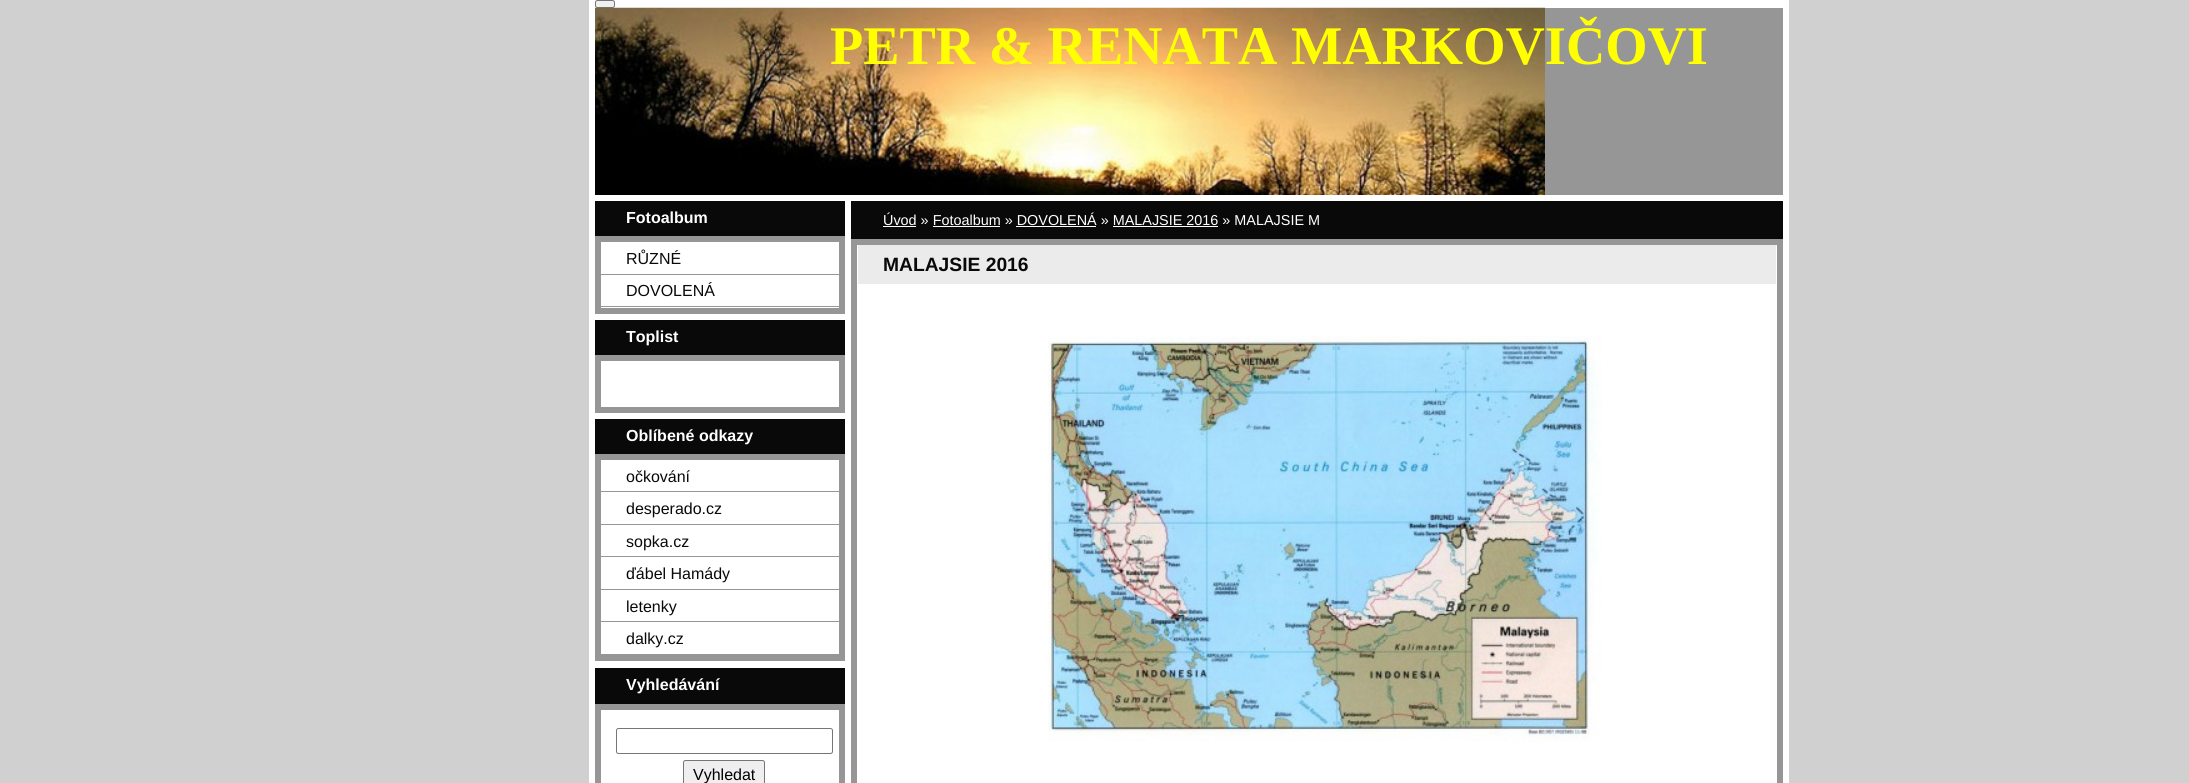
#include <cairo/cairo.h>
#include <math.h>
#include <stddef.h>


static void rounded_rect(cairo_t *cr, double x, double y, double w, double h, double r) {
  cairo_new_sub_path(cr);
  cairo_arc(cr, x + w - r, y + h - r, r, 0, M_PI / 2);
  cairo_arc(cr, x + r, y + h - r, r, M_PI / 2, M_PI);
  cairo_arc(cr, x + r, y + r, r, M_PI, 1.5 * M_PI);
  cairo_arc(cr, x + w - r, y + r, r, 1.5 * M_PI, 2 * M_PI);
  cairo_close_path(cr);
}

static void draw_image(cairo_t *cr, const char *path, double x, double y, double w, double h) {
  cairo_surface_t *image = cairo_image_surface_create_from_png(path);
  cairo_save(cr);
  cairo_set_source_surface(cr, image, x, y);
  cairo_rectangle(cr, x, y, w, h);
  cairo_fill(cr);
  cairo_restore(cr);
  cairo_surface_destroy(image);
}

static void draw(cairo_t *cr) {
  cairo_set_source_rgb(cr, 208 / 255.0, 208 / 255.0, 208 / 255.0);
  cairo_paint(cr);
  cairo_set_source_rgb(cr, 1, 1, 1);
  cairo_rectangle(cr, 589, 0, 1200, 783);
  cairo_fill(cr);
  cairo_set_source_rgb(cr, 239 / 255.0, 239 / 255.0, 239 / 255.0);
  rounded_rect(cr, 595.5, 0.5, 19, 7, 2);
  cairo_fill_preserve(cr);
  cairo_set_source_rgb(cr, 118 / 255.0, 118 / 255.0, 118 / 255.0);
  cairo_set_line_width(cr, 1);
  cairo_stroke(cr);
  cairo_set_source_rgb(cr, 150 / 255.0, 150 / 255.0, 150 / 255.0);
  cairo_rectangle(cr, 1545, 8, 238, 187);
  cairo_fill(cr);
  draw_image(cr, "images/1.png", 595, 7, 950, 188);
  cairo_set_source_rgb(cr, 9 / 255.0, 9 / 255.0, 9 / 255.0);
  cairo_rectangle(cr, 595, 201, 250, 35);
  cairo_fill(cr);
  cairo_rectangle(cr, 598, 239, 244, 72);
  cairo_set_source_rgb(cr, 150 / 255.0, 150 / 255.0, 150 / 255.0);
  cairo_set_line_width(cr, 6);
  cairo_stroke(cr);
  cairo_rectangle(cr, 601, 274, 238, 1);
  cairo_fill(cr);
  cairo_rectangle(cr, 601, 306, 238, 1);
  cairo_fill(cr);
  cairo_set_source_rgb(cr, 9 / 255.0, 9 / 255.0, 9 / 255.0);
  cairo_rectangle(cr, 595, 320, 250, 35);
  cairo_fill(cr);
  cairo_rectangle(cr, 598, 358, 244, 52);
  cairo_set_source_rgb(cr, 150 / 255.0, 150 / 255.0, 150 / 255.0);
  cairo_stroke(cr);
  cairo_set_source_rgb(cr, 9 / 255.0, 9 / 255.0, 9 / 255.0);
  cairo_rectangle(cr, 595, 419, 250, 35);
  cairo_fill(cr);
  cairo_rectangle(cr, 598, 457, 244, 201);
  cairo_set_source_rgb(cr, 150 / 255.0, 150 / 255.0, 150 / 255.0);
  cairo_stroke(cr);
  cairo_rectangle(cr, 601, 491, 238, 1);
  cairo_fill(cr);
  cairo_rectangle(cr, 601, 524, 238, 1);
  cairo_fill(cr);
  cairo_rectangle(cr, 601, 556, 238, 1);
  cairo_fill(cr);
  cairo_rectangle(cr, 601, 589, 238, 1);
  cairo_fill(cr);
  cairo_rectangle(cr, 601, 621, 238, 1);
  cairo_fill(cr);
  cairo_rectangle(cr, 601, 654, 238, 1);
  cairo_fill(cr);
  cairo_set_source_rgb(cr, 9 / 255.0, 9 / 255.0, 9 / 255.0);
  cairo_rectangle(cr, 595, 668, 250, 36);
  cairo_fill(cr);
  cairo_rectangle(cr, 598, 707, 244, 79);
  cairo_set_source_rgb(cr, 150 / 255.0, 150 / 255.0, 150 / 255.0);
  cairo_stroke(cr);
  rounded_rect(cr, 616.5, 728.5, 216, 25, 2);
  cairo_set_source_rgb(cr, 118 / 255.0, 118 / 255.0, 118 / 255.0);
  cairo_set_line_width(cr, 1);
  cairo_stroke(cr);
  cairo_set_source_rgb(cr, 239 / 255.0, 239 / 255.0, 239 / 255.0);
  rounded_rect(cr, 683.5, 760.5, 81, 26, 2);
  cairo_fill_preserve(cr);
  cairo_set_source_rgb(cr, 118 / 255.0, 118 / 255.0, 118 / 255.0);
  cairo_stroke(cr);
  cairo_set_source_rgb(cr, 9 / 255.0, 9 / 255.0, 9 / 255.0);
  cairo_rectangle(cr, 851, 201, 932, 38);
  cairo_fill(cr);
  cairo_set_source_rgb(cr, 1, 1, 1);
  cairo_rectangle(cr, 883, 226, 33, 1);
  cairo_fill(cr);
  cairo_rectangle(cr, 933, 226, 67, 1);
  cairo_fill(cr);
  cairo_rectangle(cr, 1016, 226, 80, 1);
  cairo_fill(cr);
  cairo_rectangle(cr, 1113, 226, 105, 1);
  cairo_fill(cr);
  cairo_rectangle(cr, 854, 242, 926, 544);
  cairo_set_source_rgb(cr, 150 / 255.0, 150 / 255.0, 150 / 255.0);
  cairo_set_line_width(cr, 6);
  cairo_stroke(cr);
  cairo_set_source_rgb(cr, 235 / 255.0, 235 / 255.0, 235 / 255.0);
  cairo_rectangle(cr, 858, 245, 918, 39);
  cairo_fill(cr);
  draw_image(cr, "images/2.png", 1048, 336, 554, 406);
  cairo_select_font_face(cr, "Liberation Serif", CAIRO_FONT_SLANT_NORMAL, CAIRO_FONT_WEIGHT_BOLD);
  cairo_set_font_size(cr, 54.4);
  cairo_set_source_rgb(cr, 1, 1, 0);
  cairo_move_to(cr, 830, 64);
  cairo_show_text(cr, "PETR & RENATA MARKOVIČOVI");
  cairo_select_font_face(cr, "Liberation Sans", CAIRO_FONT_SLANT_NORMAL, CAIRO_FONT_WEIGHT_BOLD);
  cairo_set_font_size(cr, 16);
  cairo_set_source_rgb(cr, 1, 1, 1);
  cairo_move_to(cr, 626, 223);
  cairo_show_text(cr, "Fotoalbum");
  cairo_select_font_face(cr, "Liberation Sans", CAIRO_FONT_SLANT_NORMAL, CAIRO_FONT_WEIGHT_NORMAL);
  cairo_set_source_rgb(cr, 9 / 255.0, 9 / 255.0, 9 / 255.0);
  cairo_move_to(cr, 626, 264);
  cairo_show_text(cr, "RŮZNÉ");
  cairo_move_to(cr, 626, 296);
  cairo_show_text(cr, "DOVOLENÁ");
  cairo_select_font_face(cr, "Liberation Sans", CAIRO_FONT_SLANT_NORMAL, CAIRO_FONT_WEIGHT_BOLD);
  cairo_set_source_rgb(cr, 1, 1, 1);
  cairo_move_to(cr, 626, 342);
  cairo_show_text(cr, "Toplist");
  cairo_move_to(cr, 626, 441);
  cairo_show_text(cr, "Oblíbené odkazy");
  cairo_select_font_face(cr, "Liberation Sans", CAIRO_FONT_SLANT_NORMAL, CAIRO_FONT_WEIGHT_NORMAL);
  cairo_set_source_rgb(cr, 9 / 255.0, 9 / 255.0, 9 / 255.0);
  cairo_move_to(cr, 626, 482);
  cairo_show_text(cr, "očkování");
  cairo_move_to(cr, 626, 514);
  cairo_show_text(cr, "desperado.cz");
  cairo_move_to(cr, 626, 547);
  cairo_show_text(cr, "sopka.cz");
  cairo_move_to(cr, 626, 579);
  cairo_show_text(cr, "ďábel Hamády");
  cairo_move_to(cr, 626, 612);
  cairo_show_text(cr, "letenky");
  cairo_move_to(cr, 626, 644);
  cairo_show_text(cr, "dalky.cz");
  cairo_select_font_face(cr, "Liberation Sans", CAIRO_FONT_SLANT_NORMAL, CAIRO_FONT_WEIGHT_BOLD);
  cairo_set_source_rgb(cr, 1, 1, 1);
  cairo_move_to(cr, 626, 690);
  cairo_show_text(cr, "Vyhledávání");
  cairo_select_font_face(cr, "Liberation Sans", CAIRO_FONT_SLANT_NORMAL, CAIRO_FONT_WEIGHT_NORMAL);
  cairo_set_source_rgb(cr, 0, 0, 0);
  cairo_move_to(cr, 693, 780);
  cairo_show_text(cr, "Vyhledat");
  cairo_set_font_size(cr, 14.4);
  cairo_set_source_rgb(cr, 1, 1, 1);
  cairo_move_to(cr, 883, 225);
  cairo_show_text(cr, "Úvod » Fotoalbum » DOVOLENÁ » MALAJSIE 2016 » MALAJSIE M");
  cairo_select_font_face(cr, "Liberation Sans", CAIRO_FONT_SLANT_NORMAL, CAIRO_FONT_WEIGHT_BOLD);
  cairo_set_font_size(cr, 19.25);
  cairo_set_source_rgb(cr, 9 / 255.0, 9 / 255.0, 9 / 255.0);
  cairo_move_to(cr, 883, 271);
  cairo_show_text(cr, "MALAJSIE 2016");
}

int main(void) {
  cairo_surface_t *surface = cairo_image_surface_create(CAIRO_FORMAT_RGB24, 2189, 783);
  cairo_t *cr = cairo_create(surface);
  cairo_font_options_t *options = cairo_font_options_create();
  cairo_font_options_set_hint_metrics(options, CAIRO_HINT_METRICS_OFF);
  cairo_font_options_set_hint_style(options, CAIRO_HINT_STYLE_NONE);
  cairo_set_font_options(cr, options);
  cairo_set_miter_limit(cr, 4);
  draw(cr);
  cairo_surface_write_to_png(surface, "out.png");
  cairo_font_options_destroy(options);
  cairo_destroy(cr);
  cairo_surface_destroy(surface);
  return 0;
}
